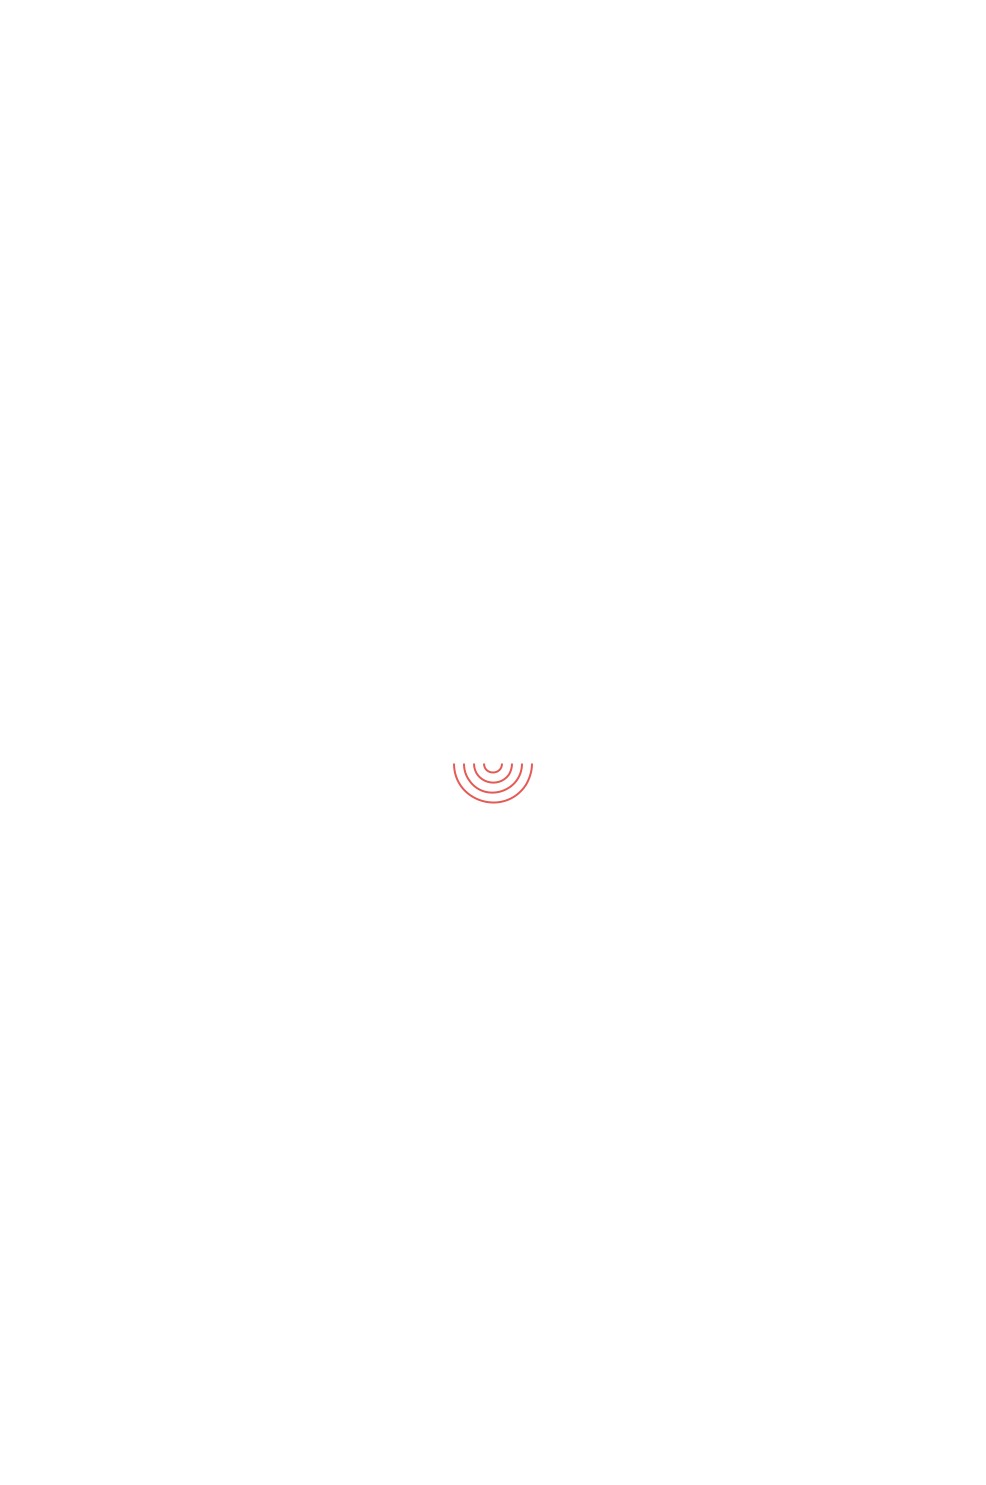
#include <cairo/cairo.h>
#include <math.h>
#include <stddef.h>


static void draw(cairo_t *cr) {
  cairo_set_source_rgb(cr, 1, 1, 1);
  cairo_paint(cr);
  cairo_new_path(cr);
  cairo_move_to(cr, 532, 763.5);
  cairo_curve_to(cr, 532, 771.5, 529.5, 779, 525.5, 785.5);
  cairo_curve_to(cr, 504, 817, 454, 802, 454, 763.5);
  cairo_set_source_rgb(cr, 229 / 255.0, 90 / 255.0, 84 / 255.0);
  cairo_stroke(cr);
  cairo_new_path(cr);
  cairo_move_to(cr, 522, 763.5);
  cairo_curve_to(cr, 522, 792, 484.5, 803.5, 469, 780);
  cairo_curve_to(cr, 465.5, 775, 464, 769.5, 464, 763.5);
  cairo_move_to(cr, 512, 763.5);
  cairo_curve_to(cr, 512, 767.5, 511, 771, 509, 774.5);
  cairo_curve_to(cr, 498.5, 789.5, 474, 782.5, 474, 763.5);
  cairo_move_to(cr, 502, 763.5);
  cairo_curve_to(cr, 502, 775.5, 484, 775.5, 484, 763.5);
  cairo_stroke(cr);
}

int main(void) {
  cairo_surface_t *surface = cairo_image_surface_create(CAIRO_FORMAT_RGB24, 986, 1485);
  cairo_t *cr = cairo_create(surface);
  cairo_font_options_t *options = cairo_font_options_create();
  cairo_font_options_set_hint_metrics(options, CAIRO_HINT_METRICS_OFF);
  cairo_font_options_set_hint_style(options, CAIRO_HINT_STYLE_NONE);
  cairo_set_font_options(cr, options);
  cairo_set_miter_limit(cr, 4);
  draw(cr);
  cairo_surface_write_to_png(surface, "out.png");
  cairo_font_options_destroy(options);
  cairo_destroy(cr);
  cairo_surface_destroy(surface);
  return 0;
}
